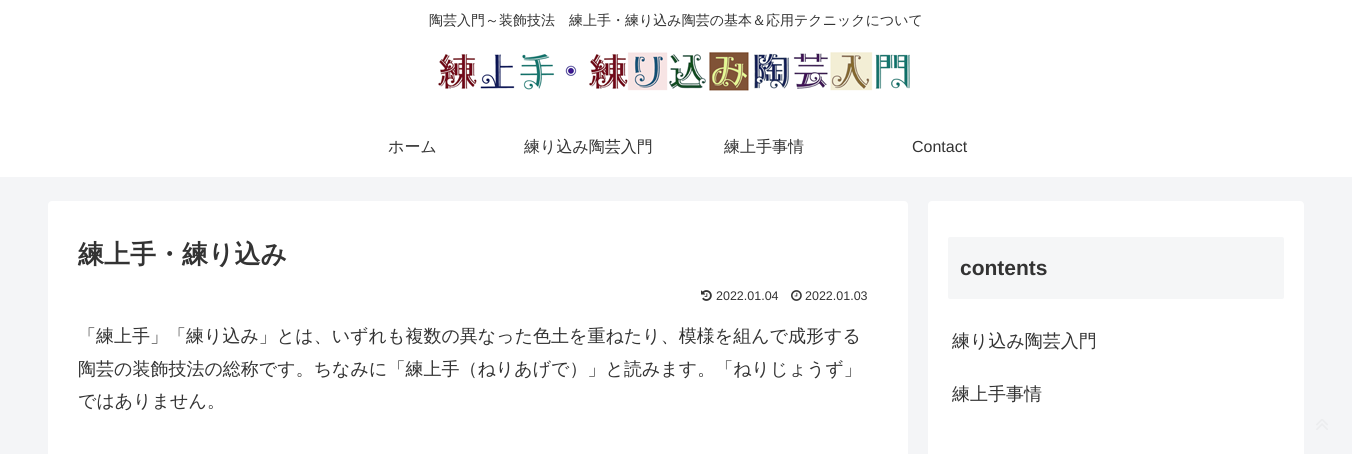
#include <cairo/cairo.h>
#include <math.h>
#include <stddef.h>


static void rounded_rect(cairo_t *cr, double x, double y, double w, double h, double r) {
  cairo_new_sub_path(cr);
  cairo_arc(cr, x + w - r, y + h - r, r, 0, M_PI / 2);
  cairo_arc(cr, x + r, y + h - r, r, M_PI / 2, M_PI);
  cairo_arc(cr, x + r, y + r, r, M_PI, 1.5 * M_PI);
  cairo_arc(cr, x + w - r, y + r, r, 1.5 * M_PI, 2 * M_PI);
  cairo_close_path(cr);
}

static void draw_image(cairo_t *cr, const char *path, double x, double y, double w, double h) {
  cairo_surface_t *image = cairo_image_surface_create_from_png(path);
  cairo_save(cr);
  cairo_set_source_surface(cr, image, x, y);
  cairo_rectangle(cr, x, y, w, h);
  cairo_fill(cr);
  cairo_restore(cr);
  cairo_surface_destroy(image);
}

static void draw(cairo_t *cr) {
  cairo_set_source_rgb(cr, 244 / 255.0, 245 / 255.0, 247 / 255.0);
  cairo_paint(cr);
  cairo_set_source_rgb(cr, 1, 1, 1);
  cairo_rectangle(cr, 0, 0, 1352, 177);
  cairo_fill(cr);
  draw_image(cr, "images/1.png", 438, 52, 472, 39);
  rounded_rect(cr, 48, 201, 860, 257, 4);
  cairo_fill(cr);
  draw_image(cr, "images/2.png", 701, 290, 11, 11);
  draw_image(cr, "images/3.png", 791, 290, 11, 11);
  rounded_rect(cr, 928, 201, 376, 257, 4);
  cairo_fill(cr);
  cairo_set_source_rgb(cr, 245 / 255.0, 246 / 255.0, 247 / 255.0);
  rounded_rect(cr, 948, 237, 336, 62, 2);
  cairo_fill(cr);
  draw_image(cr, "images/4.png", 1316, 419, 12, 11);
  cairo_select_font_face(cr, "WenQuanYi Zen Hei Medium", CAIRO_FONT_SLANT_NORMAL, CAIRO_FONT_WEIGHT_NORMAL);
  cairo_set_font_size(cr, 14);
  cairo_set_source_rgb(cr, 51 / 255.0, 51 / 255.0, 51 / 255.0);
  cairo_move_to(cr, 429, 25);
  cairo_show_text(cr, "陶芸入門～装飾技法　練上手・練り込み陶芸の基本＆応用テクニックについて");
  cairo_set_font_size(cr, 16);
  cairo_move_to(cr, 388, 152);
  cairo_show_text(cr, "ホーム");
  cairo_move_to(cr, 524, 152);
  cairo_show_text(cr, "練り込み陶芸入門");
  cairo_move_to(cr, 724, 152);
  cairo_show_text(cr, "練上手事情");
  cairo_select_font_face(cr, "Liberation Sans", CAIRO_FONT_SLANT_NORMAL, CAIRO_FONT_WEIGHT_NORMAL);
  cairo_move_to(cr, 912, 152);
  cairo_show_text(cr, "Contact");
  cairo_select_font_face(cr, "WenQuanYi Zen Hei", CAIRO_FONT_SLANT_NORMAL, CAIRO_FONT_WEIGHT_BOLD);
  cairo_set_font_size(cr, 26);
  cairo_move_to(cr, 78, 263);
  cairo_show_text(cr, "練上手・練り込み");
  cairo_select_font_face(cr, "Liberation Sans", CAIRO_FONT_SLANT_NORMAL, CAIRO_FONT_WEIGHT_NORMAL);
  cairo_set_font_size(cr, 12.5);
  cairo_move_to(cr, 716, 300);
  cairo_show_text(cr, "2022.01.04");
  cairo_move_to(cr, 805, 300);
  cairo_show_text(cr, "2022.01.03");
  cairo_select_font_face(cr, "WenQuanYi Zen Hei Medium", CAIRO_FONT_SLANT_NORMAL, CAIRO_FONT_WEIGHT_NORMAL);
  cairo_set_font_size(cr, 18);
  cairo_move_to(cr, 78, 342);
  cairo_show_text(cr, "「練上手」「練り込み」とは、いずれも複数の異なった色土を重ねたり、模様を組んで成形する");
  cairo_move_to(cr, 78, 375);
  cairo_show_text(cr, "陶芸の装飾技法の総称です。ちなみに「練上手（ねりあげで）」と読みます。「ねりじょうず」");
  cairo_move_to(cr, 78, 407);
  cairo_show_text(cr, "ではありません。");
  cairo_select_font_face(cr, "Liberation Sans", CAIRO_FONT_SLANT_NORMAL, CAIRO_FONT_WEIGHT_BOLD);
  cairo_set_font_size(cr, 21);
  cairo_move_to(cr, 960, 275);
  cairo_show_text(cr, "contents");
  cairo_select_font_face(cr, "WenQuanYi Zen Hei Medium", CAIRO_FONT_SLANT_NORMAL, CAIRO_FONT_WEIGHT_NORMAL);
  cairo_set_font_size(cr, 18);
  cairo_move_to(cr, 952, 347);
  cairo_show_text(cr, "練り込み陶芸入門");
  cairo_move_to(cr, 952, 400);
  cairo_show_text(cr, "練上手事情");
}

int main(void) {
  cairo_surface_t *surface = cairo_image_surface_create(CAIRO_FORMAT_RGB24, 1352, 454);
  cairo_t *cr = cairo_create(surface);
  cairo_font_options_t *options = cairo_font_options_create();
  cairo_font_options_set_hint_metrics(options, CAIRO_HINT_METRICS_OFF);
  cairo_font_options_set_hint_style(options, CAIRO_HINT_STYLE_NONE);
  cairo_set_font_options(cr, options);
  cairo_set_miter_limit(cr, 4);
  draw(cr);
  cairo_surface_write_to_png(surface, "out.png");
  cairo_font_options_destroy(options);
  cairo_destroy(cr);
  cairo_surface_destroy(surface);
  return 0;
}
